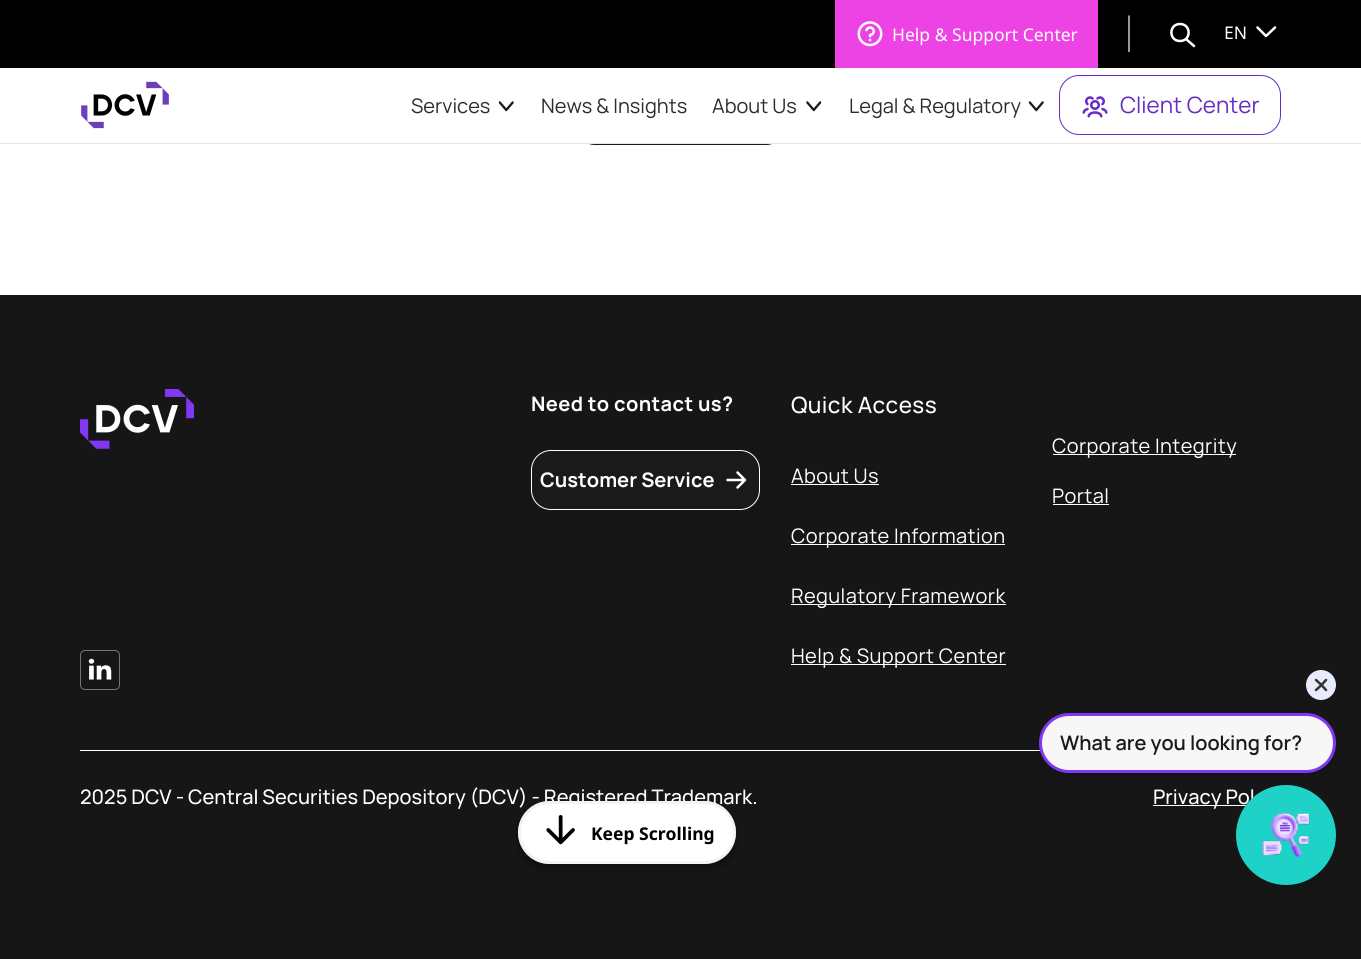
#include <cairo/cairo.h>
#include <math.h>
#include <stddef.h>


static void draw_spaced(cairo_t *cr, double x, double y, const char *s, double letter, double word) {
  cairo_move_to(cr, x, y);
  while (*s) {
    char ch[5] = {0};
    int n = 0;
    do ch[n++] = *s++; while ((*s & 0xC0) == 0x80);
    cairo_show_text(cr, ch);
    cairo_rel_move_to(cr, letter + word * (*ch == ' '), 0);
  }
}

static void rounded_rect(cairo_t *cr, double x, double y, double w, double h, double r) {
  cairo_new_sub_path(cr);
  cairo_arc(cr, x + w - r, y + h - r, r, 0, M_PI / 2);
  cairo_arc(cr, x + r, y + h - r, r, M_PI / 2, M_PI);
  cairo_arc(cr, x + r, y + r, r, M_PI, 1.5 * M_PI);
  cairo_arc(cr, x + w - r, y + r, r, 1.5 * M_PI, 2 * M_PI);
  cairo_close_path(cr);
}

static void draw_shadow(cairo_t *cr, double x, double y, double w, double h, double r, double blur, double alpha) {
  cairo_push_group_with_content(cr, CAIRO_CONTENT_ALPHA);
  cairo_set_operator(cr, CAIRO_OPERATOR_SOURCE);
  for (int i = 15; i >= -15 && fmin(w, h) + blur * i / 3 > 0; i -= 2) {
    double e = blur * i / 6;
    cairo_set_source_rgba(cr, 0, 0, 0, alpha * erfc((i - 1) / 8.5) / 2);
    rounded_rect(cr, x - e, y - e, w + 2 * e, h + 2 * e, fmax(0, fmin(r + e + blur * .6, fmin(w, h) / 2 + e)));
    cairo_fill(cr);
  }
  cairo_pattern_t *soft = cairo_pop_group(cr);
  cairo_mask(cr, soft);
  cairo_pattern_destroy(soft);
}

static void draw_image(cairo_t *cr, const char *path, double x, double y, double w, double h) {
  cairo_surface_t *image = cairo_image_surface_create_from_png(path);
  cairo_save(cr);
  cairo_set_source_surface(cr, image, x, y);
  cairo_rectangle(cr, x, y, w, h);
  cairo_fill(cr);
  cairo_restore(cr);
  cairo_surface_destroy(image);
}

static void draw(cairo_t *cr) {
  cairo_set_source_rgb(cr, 1, 1, 1);
  cairo_paint(cr);
  cairo_set_source_rgb(cr, 26 / 255.0, 26 / 255.0, 26 / 255.0);
  rounded_rect(cr, 575.5, 85.5, 210, 60, 19.5);
  cairo_fill_preserve(cr);
  cairo_set_source_rgb(cr, 1, 1, 1);
  cairo_set_line_width(cr, 1);
  cairo_stroke(cr);
  cairo_rectangle(cr, 575, 85, 211, 58);
  cairo_fill(cr);
  cairo_set_source_rgb(cr, 230 / 255.0, 230 / 255.0, 230 / 255.0);
  cairo_rectangle(cr, 0, 143, 1361, 1);
  cairo_fill(cr);
  cairo_set_source_rgb(cr, 0, 0, 0);
  cairo_rectangle(cr, 0, 0, 1361, 68);
  cairo_fill(cr);
  cairo_set_source_rgb(cr, 237 / 255.0, 67 / 255.0, 229 / 255.0);
  cairo_rectangle(cr, 835, 0, 263, 68);
  cairo_fill(cr);
  draw_image(cr, "images/1.png", 857, 21, 26, 26);
  cairo_new_path(cr);
  cairo_move_to(cr, 1129, 15.5);
  cairo_line_to(cr, 1129, 52);
  cairo_set_source_rgb(cr, 1, 1, 1);
  cairo_set_line_width(cr, 1.2);
  cairo_stroke(cr);
  cairo_new_path(cr);
  cairo_move_to(cr, 1186, 39);
  cairo_line_to(cr, 1194, 46);
  cairo_move_to(cr, 1180, 41);
  cairo_curve_to(cr, 1168.5, 41, 1168.5, 24, 1180, 24);
  cairo_curve_to(cr, 1191.5, 24, 1191.5, 41, 1180, 41);
  cairo_close_path(cr);
  cairo_set_line_width(cr, 2.5);
  cairo_set_line_cap(cr, CAIRO_LINE_CAP_ROUND);
  cairo_set_line_join(cr, CAIRO_LINE_JOIN_ROUND);
  cairo_stroke(cr);
  cairo_new_path(cr);
  cairo_move_to(cr, 1275, 27.5);
  cairo_line_to(cr, 1266, 36);
  cairo_line_to(cr, 1257.5, 27.5);
  cairo_stroke(cr);
  draw_image(cr, "images/2.png", 81, 81, 88, 48);
  draw_image(cr, "images/3.png", 498, 101, 16, 11);
  draw_image(cr, "images/4.png", 806, 101, 16, 11);
  draw_image(cr, "images/3.png", 1028, 101, 16, 11);
  rounded_rect(cr, 1059.5, 75.5, 221, 59, 19.5);
  cairo_set_source_rgb(cr, 103 / 255.0, 44 / 255.0, 194 / 255.0);
  cairo_set_line_width(cr, 1);
  cairo_set_line_cap(cr, CAIRO_LINE_CAP_BUTT);
  cairo_set_line_join(cr, CAIRO_LINE_JOIN_MITER);
  cairo_stroke(cr);
  draw_image(cr, "images/5.png", 1082, 96, 26, 22);
  cairo_set_source_rgb(cr, 22 / 255.0, 22 / 255.0, 22 / 255.0);
  cairo_rectangle(cr, 0, 295, 1361, 664);
  cairo_fill(cr);
  draw_image(cr, "images/6.png", 80, 389, 114, 60);
  draw_image(cr, "images/7.png", 80, 650, 40, 40);
  cairo_set_source_rgb(cr, 26 / 255.0, 26 / 255.0, 26 / 255.0);
  rounded_rect(cr, 531.5, 450.5, 228, 59, 19.5);
  cairo_fill_preserve(cr);
  cairo_set_source_rgb(cr, 1, 1, 1);
  cairo_stroke(cr);
  cairo_new_path(cr);
  cairo_move_to(cr, 727.5, 480);
  cairo_line_to(cr, 745, 480);
  cairo_move_to(cr, 745, 480);
  cairo_line_to(cr, 737.5, 472.5);
  cairo_move_to(cr, 745, 480);
  cairo_line_to(cr, 737.5, 487.5);
  cairo_set_line_width(cr, 2.5);
  cairo_set_line_cap(cr, CAIRO_LINE_CAP_ROUND);
  cairo_set_line_join(cr, CAIRO_LINE_JOIN_ROUND);
  cairo_stroke(cr);
  cairo_rectangle(cr, 791, 484, 88, 1);
  cairo_fill(cr);
  cairo_rectangle(cr, 791, 544, 214, 1);
  cairo_fill(cr);
  cairo_rectangle(cr, 791, 604, 215, 1);
  cairo_fill(cr);
  cairo_rectangle(cr, 791, 664, 215, 1);
  cairo_fill(cr);
  cairo_rectangle(cr, 1053, 454, 183, 1);
  cairo_fill(cr);
  cairo_rectangle(cr, 1053, 504, 56, 1);
  cairo_fill(cr);
  cairo_rectangle(cr, 80, 750, 961, 1);
  cairo_fill(cr);
  cairo_rectangle(cr, 1153, 805, 93, 1);
  cairo_fill(cr);
  cairo_set_source_rgb(cr, 232 / 255.0, 235 / 255.0, 251 / 255.0);
  cairo_arc(cr, 1321, 685, 15, 0, 2 * M_PI);
  cairo_fill(cr);
  cairo_new_path(cr);
  cairo_move_to(cr, 1326, 690);
  cairo_line_to(cr, 1321.5, 685);
  cairo_move_to(cr, 1321.5, 685);
  cairo_line_to(cr, 1316, 680);
  cairo_move_to(cr, 1321.5, 685);
  cairo_line_to(cr, 1326, 680);
  cairo_move_to(cr, 1321.5, 685);
  cairo_line_to(cr, 1316, 690);
  cairo_set_source_rgb(cr, 51 / 255.0, 51 / 255.0, 51 / 255.0);
  cairo_stroke(cr);
  cairo_set_source_rgb(cr, 0, 0, 0);
  draw_shadow(cr, 1039, 718, 297, 60, 30, 4, 0.1);
  cairo_set_source_rgb(cr, 247 / 255.0, 247 / 255.0, 248 / 255.0);
  rounded_rect(cr, 1040.5, 714.5, 294, 57, 28.5);
  cairo_fill_preserve(cr);
  cairo_set_source_rgb(cr, 129 / 255.0, 55 / 255.0, 242 / 255.0);
  cairo_set_line_width(cr, 3);
  cairo_set_line_cap(cr, CAIRO_LINE_CAP_BUTT);
  cairo_set_line_join(cr, CAIRO_LINE_JOIN_MITER);
  cairo_stroke(cr);
  cairo_set_source_rgb(cr, 0, 0, 0);
  draw_shadow(cr, 1236, 790, 100, 100, 50, 4, 0.1);
  cairo_set_source_rgb(cr, 1 / 255.0, 1 / 255.0, 1 / 255.0);
  draw_shadow(cr, 518, 806, 218, 63, 31.5, 4, 0.4);
  cairo_set_source_rgb(cr, 1, 1, 1);
  rounded_rect(cr, 518, 801, 218, 63, 31.5);
  cairo_fill(cr);
  cairo_select_font_face(cr, "Noto Sans", CAIRO_FONT_SLANT_NORMAL, CAIRO_FONT_WEIGHT_NORMAL);
  cairo_set_font_size(cr, 17.5);
  cairo_move_to(cr, 892, 41);
  cairo_show_text(cr, "Help & Support Center");
  cairo_move_to(cr, 1224, 39);
  cairo_show_text(cr, "EN");
  cairo_select_font_face(cr, "Manrope", CAIRO_FONT_SLANT_NORMAL, CAIRO_FONT_WEIGHT_NORMAL);
  cairo_set_font_size(cr, 20);
  cairo_set_source_rgb(cr, 45 / 255.0, 45 / 255.0, 45 / 255.0);
  cairo_move_to(cr, 411, 113);
  cairo_show_text(cr, "Services");
  cairo_move_to(cr, 541, 113);
  cairo_show_text(cr, "News & Insights");
  cairo_move_to(cr, 712, 113);
  cairo_show_text(cr, "About Us");
  cairo_move_to(cr, 849, 113);
  cairo_show_text(cr, "Legal & Regulatory");
  cairo_set_font_size(cr, 22.5);
  cairo_set_source_rgb(cr, 103 / 255.0, 44 / 255.0, 194 / 255.0);
  cairo_move_to(cr, 1120, 113);
  cairo_show_text(cr, "Client Center");
  cairo_select_font_face(cr, "Manrope", CAIRO_FONT_SLANT_NORMAL, CAIRO_FONT_WEIGHT_BOLD);
  cairo_set_font_size(cr, 20);
  cairo_set_source_rgb(cr, 1, 1, 1);
  draw_spaced(cr, 531, 411, "Need to contact us?", 0.4, 0);
  cairo_move_to(cr, 540, 487);
  cairo_show_text(cr, "Customer Service");
  cairo_select_font_face(cr, "Manrope Medium", CAIRO_FONT_SLANT_NORMAL, CAIRO_FONT_WEIGHT_NORMAL);
  cairo_set_font_size(cr, 22.5);
  draw_spaced(cr, 791, 413, "Quick Access", 0.4, 0);
  cairo_select_font_face(cr, "Manrope", CAIRO_FONT_SLANT_NORMAL, CAIRO_FONT_WEIGHT_NORMAL);
  cairo_set_font_size(cr, 20);
  draw_spaced(cr, 791, 483, "About Us", 0.4, 0);
  draw_spaced(cr, 791, 543, "Corporate Information", 0.4, 0);
  draw_spaced(cr, 791, 603, "Regulatory Framework", 0.4, 0);
  draw_spaced(cr, 791, 663, "Help & Support Center", 0.4, 0);
  draw_spaced(cr, 1052, 453, "Corporate Integrity", 0.4, 0);
  draw_spaced(cr, 1052, 503, "Portal", 0.4, 0);
  cairo_select_font_face(cr, "Manrope Medium", CAIRO_FONT_SLANT_NORMAL, CAIRO_FONT_WEIGHT_NORMAL);
  cairo_move_to(cr, 80, 804);
  cairo_show_text(cr, "2025 DCV - Central Securities Depository (DCV) - Registered Trademark.");
  cairo_move_to(cr, 1153, 804);
  cairo_show_text(cr, "Privacy Pol");
  cairo_select_font_face(cr, "Manrope SemiBold", CAIRO_FONT_SLANT_NORMAL, CAIRO_FONT_WEIGHT_NORMAL);
  cairo_set_source_rgb(cr, 26 / 255.0, 26 / 255.0, 26 / 255.0);
  cairo_move_to(cr, 1060, 750);
  cairo_show_text(cr, "What are you looking for?");
  cairo_set_source_rgb(cr, 31 / 255.0, 210 / 255.0, 199 / 255.0);
  cairo_new_path(cr);
  cairo_arc(cr, 1286, 835, 50, 0, 2 * M_PI);
  cairo_fill(cr);
  draw_image(cr, "images/8.png", 1262, 812, 48, 46);
  rounded_rect(cr, 519.5, 802.5, 215, 60, 30);
  cairo_set_source_rgba(cr, 232 / 255.0, 232 / 255.0, 239 / 255.0, 0.5);
  cairo_stroke(cr);
  draw_image(cr, "images/9.png", 546, 815, 29, 30);
  cairo_select_font_face(cr, "Noto Sans", CAIRO_FONT_SLANT_NORMAL, CAIRO_FONT_WEIGHT_BOLD);
  cairo_set_font_size(cr, 17.5);
  cairo_set_source_rgb(cr, 0, 0, 0);
  cairo_move_to(cr, 591, 840);
  cairo_show_text(cr, "Keep Scrolling");
}

int main(void) {
  cairo_surface_t *surface = cairo_image_surface_create(CAIRO_FORMAT_RGB24, 1361, 959);
  cairo_t *cr = cairo_create(surface);
  cairo_font_options_t *options = cairo_font_options_create();
  cairo_font_options_set_hint_metrics(options, CAIRO_HINT_METRICS_OFF);
  cairo_font_options_set_hint_style(options, CAIRO_HINT_STYLE_NONE);
  cairo_set_font_options(cr, options);
  cairo_set_miter_limit(cr, 4);
  draw(cr);
  cairo_surface_write_to_png(surface, "out.png");
  cairo_font_options_destroy(options);
  cairo_destroy(cr);
  cairo_surface_destroy(surface);
  return 0;
}
